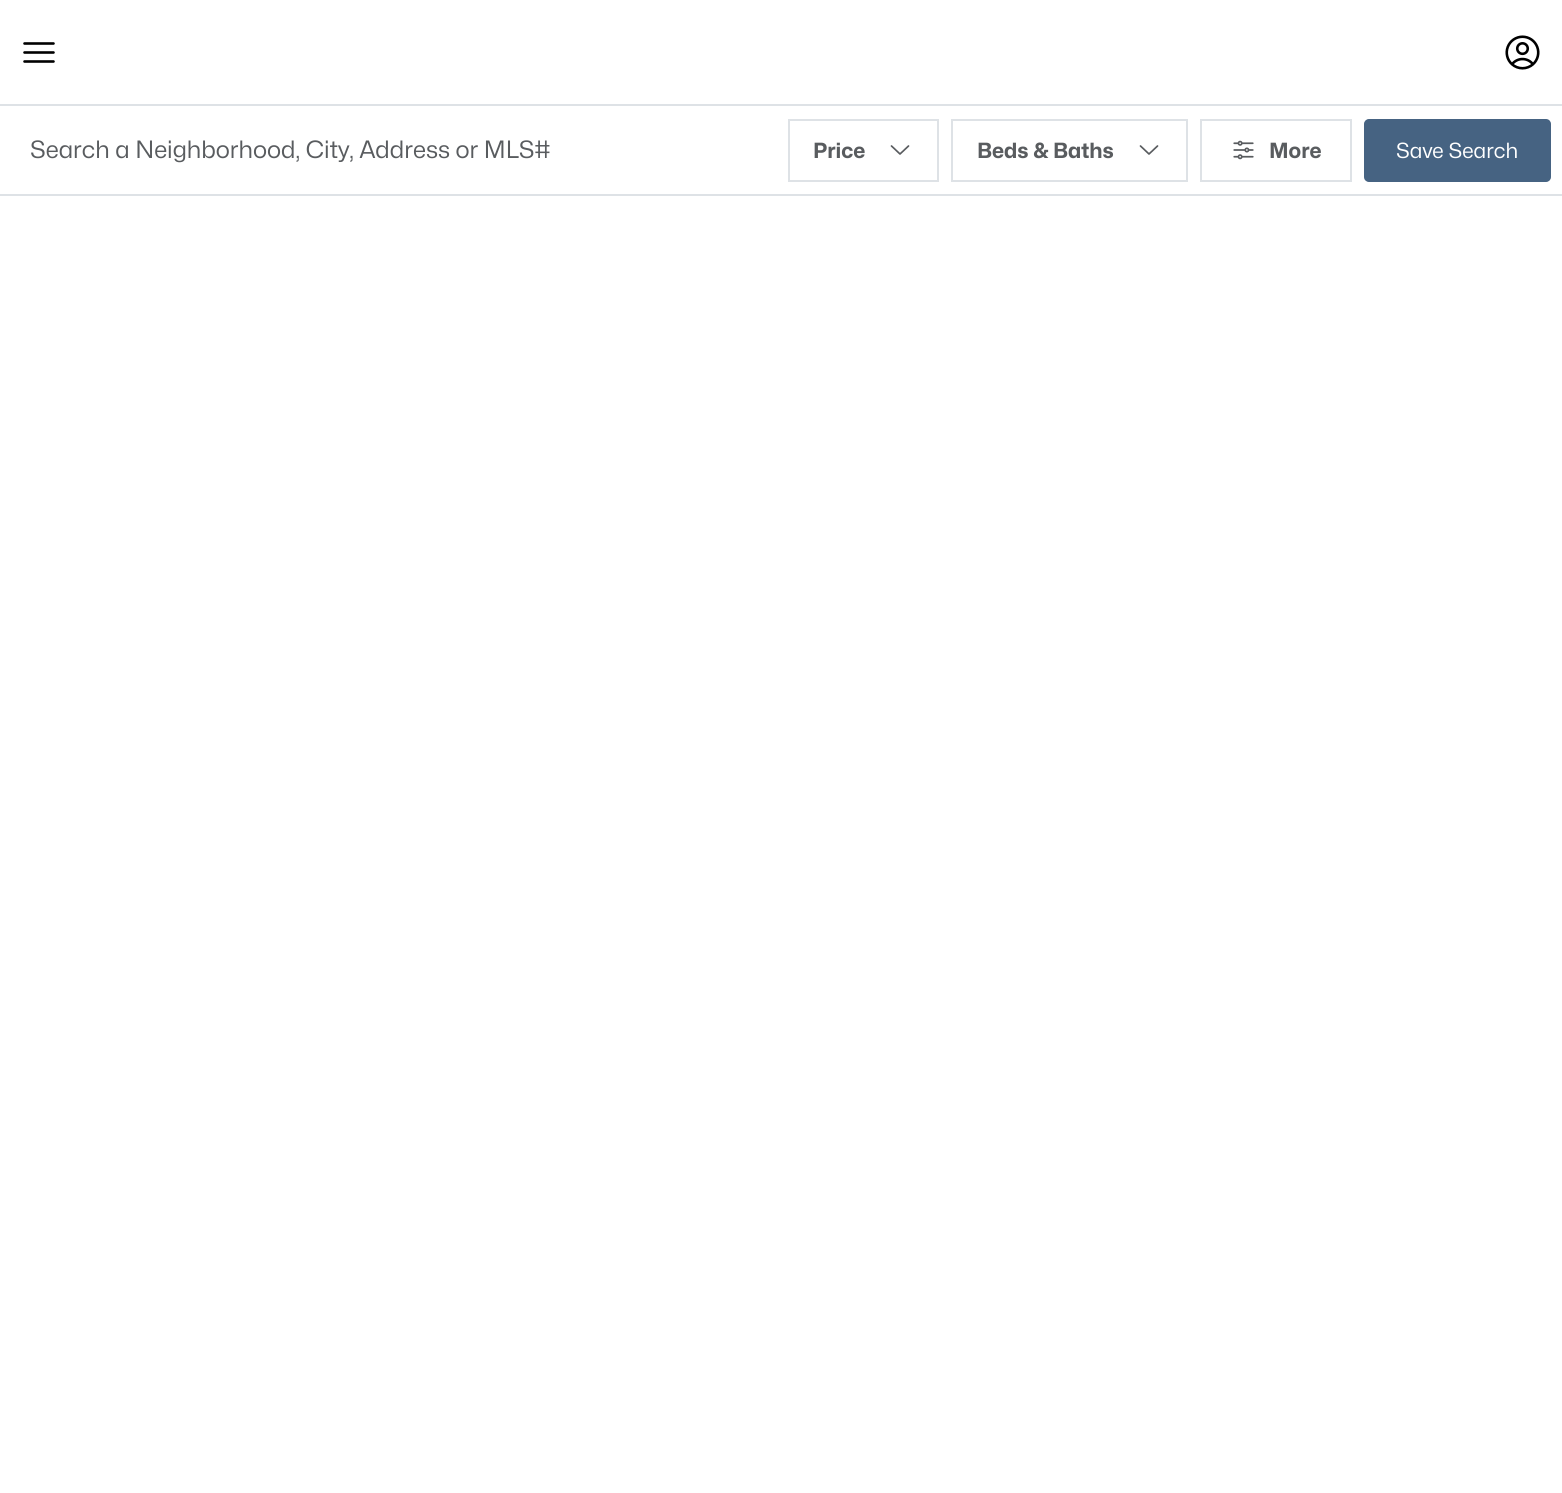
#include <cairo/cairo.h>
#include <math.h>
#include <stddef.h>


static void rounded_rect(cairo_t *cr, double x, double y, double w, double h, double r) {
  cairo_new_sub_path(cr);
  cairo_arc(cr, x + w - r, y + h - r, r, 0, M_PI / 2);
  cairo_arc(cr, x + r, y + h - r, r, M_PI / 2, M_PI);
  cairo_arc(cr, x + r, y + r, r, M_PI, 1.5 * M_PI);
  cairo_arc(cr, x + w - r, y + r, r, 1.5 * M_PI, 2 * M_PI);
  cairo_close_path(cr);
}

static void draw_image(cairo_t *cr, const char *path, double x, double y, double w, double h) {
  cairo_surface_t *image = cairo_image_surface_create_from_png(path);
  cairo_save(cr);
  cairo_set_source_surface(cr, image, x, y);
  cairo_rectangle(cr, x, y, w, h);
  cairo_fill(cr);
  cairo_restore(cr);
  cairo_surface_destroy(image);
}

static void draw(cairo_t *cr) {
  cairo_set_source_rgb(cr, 1, 1, 1);
  cairo_paint(cr);
  cairo_set_source_rgb(cr, 222 / 255.0, 226 / 255.0, 230 / 255.0);
  cairo_rectangle(cr, 0, 104, 1562, 2);
  cairo_fill(cr);
  cairo_new_path(cr);
  cairo_move_to(cr, 24.5, 43.5);
  cairo_line_to(cr, 53.5, 43.5);
  cairo_move_to(cr, 24.5, 52.5);
  cairo_line_to(cr, 53.5, 52.5);
  cairo_move_to(cr, 24.5, 61.5);
  cairo_line_to(cr, 53.5, 61.5);
  cairo_set_source_rgb(cr, 0, 0, 0);
  cairo_set_line_width(cr, 2.6);
  cairo_set_line_cap(cr, CAIRO_LINE_CAP_ROUND);
  cairo_set_line_join(cr, CAIRO_LINE_JOIN_ROUND);
  cairo_stroke(cr);
  draw_image(cr, "images/1.png", 1505, 35, 35, 35);
  cairo_set_source_rgb(cr, 222 / 255.0, 226 / 255.0, 230 / 255.0);
  cairo_rectangle(cr, 0, 194, 1562, 2);
  cairo_fill(cr);
  cairo_rectangle(cr, 789, 120, 149, 61);
  cairo_set_line_width(cr, 2);
  cairo_set_line_cap(cr, CAIRO_LINE_CAP_BUTT);
  cairo_set_line_join(cr, CAIRO_LINE_JOIN_MITER);
  cairo_stroke(cr);
  cairo_new_path(cr);
  cairo_move_to(cr, 908.5, 146);
  cairo_line_to(cr, 900, 154);
  cairo_line_to(cr, 891.5, 146);
  cairo_set_source_rgb(cr, 89 / 255.0, 92 / 255.0, 95 / 255.0);
  cairo_set_line_width(cr, 1.7);
  cairo_set_line_cap(cr, CAIRO_LINE_CAP_ROUND);
  cairo_set_line_join(cr, CAIRO_LINE_JOIN_ROUND);
  cairo_stroke(cr);
  cairo_rectangle(cr, 952, 120, 235, 61);
  cairo_set_source_rgb(cr, 222 / 255.0, 226 / 255.0, 230 / 255.0);
  cairo_set_line_width(cr, 2);
  cairo_set_line_cap(cr, CAIRO_LINE_CAP_BUTT);
  cairo_set_line_join(cr, CAIRO_LINE_JOIN_MITER);
  cairo_stroke(cr);
  cairo_new_path(cr);
  cairo_move_to(cr, 1157.5, 146);
  cairo_line_to(cr, 1149, 154);
  cairo_line_to(cr, 1140.5, 146);
  cairo_set_source_rgb(cr, 89 / 255.0, 92 / 255.0, 95 / 255.0);
  cairo_set_line_width(cr, 1.7);
  cairo_set_line_cap(cr, CAIRO_LINE_CAP_ROUND);
  cairo_set_line_join(cr, CAIRO_LINE_JOIN_ROUND);
  cairo_stroke(cr);
  cairo_rectangle(cr, 1201, 120, 150, 61);
  cairo_set_source_rgb(cr, 222 / 255.0, 226 / 255.0, 230 / 255.0);
  cairo_set_line_width(cr, 2);
  cairo_set_line_cap(cr, CAIRO_LINE_CAP_BUTT);
  cairo_set_line_join(cr, CAIRO_LINE_JOIN_MITER);
  cairo_stroke(cr);
  draw_image(cr, "images/2.png", 1233, 140, 21, 20);
  cairo_set_source_rgb(cr, 70 / 255.0, 99 / 255.0, 130 / 255.0);
  rounded_rect(cr, 1365, 120, 185, 61, 4);
  cairo_fill_preserve(cr);
  cairo_stroke(cr);
  cairo_select_font_face(cr, "Mona Sans", CAIRO_FONT_SLANT_NORMAL, CAIRO_FONT_WEIGHT_NORMAL);
  cairo_set_font_size(cr, 24);
  cairo_set_source_rgb(cr, 89 / 255.0, 92 / 255.0, 95 / 255.0);
  cairo_move_to(cr, 30, 158);
  cairo_show_text(cr, "Search a Neighborhood, City, Address or MLS#");
  cairo_select_font_face(cr, "Mona Sans", CAIRO_FONT_SLANT_NORMAL, CAIRO_FONT_WEIGHT_BOLD);
  cairo_set_font_size(cr, 21);
  cairo_move_to(cr, 813, 158);
  cairo_show_text(cr, "Price");
  cairo_move_to(cr, 977, 158);
  cairo_show_text(cr, "Beds & Baths");
  cairo_move_to(cr, 1269, 158);
  cairo_show_text(cr, "More");
  cairo_select_font_face(cr, "Mona Sans", CAIRO_FONT_SLANT_NORMAL, CAIRO_FONT_WEIGHT_NORMAL);
  cairo_set_source_rgb(cr, 1, 1, 1);
  cairo_move_to(cr, 1396, 158);
  cairo_show_text(cr, "Save Search");
}

int main(void) {
  cairo_surface_t *surface = cairo_image_surface_create(CAIRO_FORMAT_RGB24, 1562, 1493);
  cairo_t *cr = cairo_create(surface);
  cairo_font_options_t *options = cairo_font_options_create();
  cairo_font_options_set_hint_metrics(options, CAIRO_HINT_METRICS_OFF);
  cairo_font_options_set_hint_style(options, CAIRO_HINT_STYLE_NONE);
  cairo_set_font_options(cr, options);
  cairo_set_miter_limit(cr, 4);
  draw(cr);
  cairo_surface_write_to_png(surface, "out.png");
  cairo_font_options_destroy(options);
  cairo_destroy(cr);
  cairo_surface_destroy(surface);
  return 0;
}
